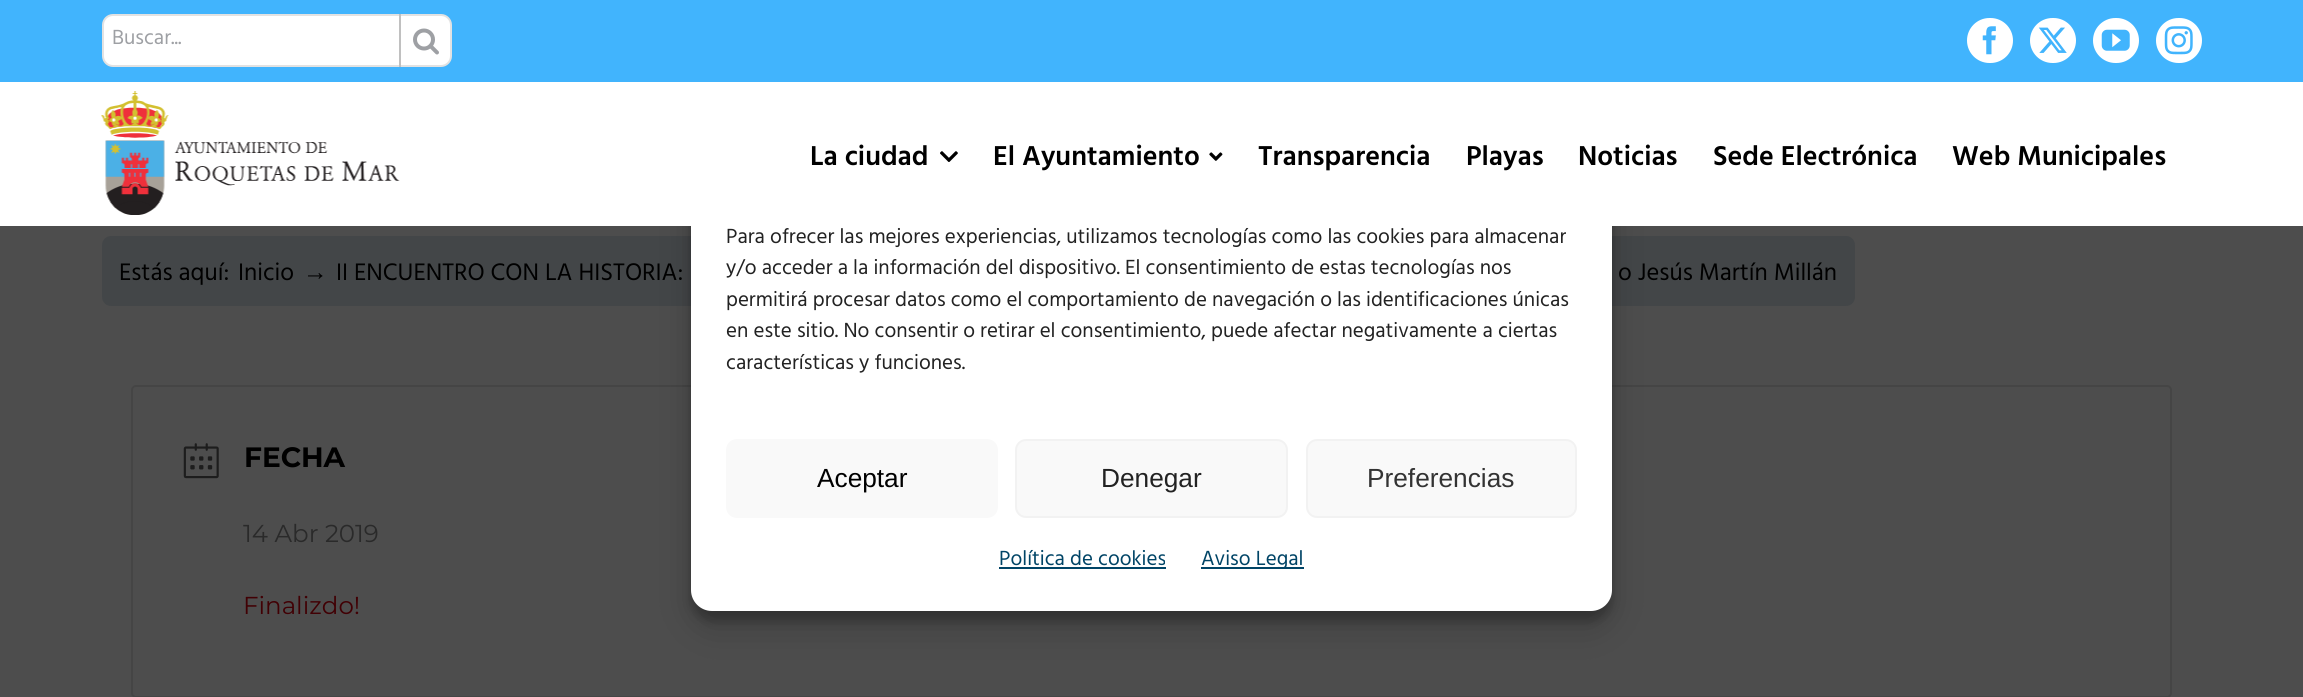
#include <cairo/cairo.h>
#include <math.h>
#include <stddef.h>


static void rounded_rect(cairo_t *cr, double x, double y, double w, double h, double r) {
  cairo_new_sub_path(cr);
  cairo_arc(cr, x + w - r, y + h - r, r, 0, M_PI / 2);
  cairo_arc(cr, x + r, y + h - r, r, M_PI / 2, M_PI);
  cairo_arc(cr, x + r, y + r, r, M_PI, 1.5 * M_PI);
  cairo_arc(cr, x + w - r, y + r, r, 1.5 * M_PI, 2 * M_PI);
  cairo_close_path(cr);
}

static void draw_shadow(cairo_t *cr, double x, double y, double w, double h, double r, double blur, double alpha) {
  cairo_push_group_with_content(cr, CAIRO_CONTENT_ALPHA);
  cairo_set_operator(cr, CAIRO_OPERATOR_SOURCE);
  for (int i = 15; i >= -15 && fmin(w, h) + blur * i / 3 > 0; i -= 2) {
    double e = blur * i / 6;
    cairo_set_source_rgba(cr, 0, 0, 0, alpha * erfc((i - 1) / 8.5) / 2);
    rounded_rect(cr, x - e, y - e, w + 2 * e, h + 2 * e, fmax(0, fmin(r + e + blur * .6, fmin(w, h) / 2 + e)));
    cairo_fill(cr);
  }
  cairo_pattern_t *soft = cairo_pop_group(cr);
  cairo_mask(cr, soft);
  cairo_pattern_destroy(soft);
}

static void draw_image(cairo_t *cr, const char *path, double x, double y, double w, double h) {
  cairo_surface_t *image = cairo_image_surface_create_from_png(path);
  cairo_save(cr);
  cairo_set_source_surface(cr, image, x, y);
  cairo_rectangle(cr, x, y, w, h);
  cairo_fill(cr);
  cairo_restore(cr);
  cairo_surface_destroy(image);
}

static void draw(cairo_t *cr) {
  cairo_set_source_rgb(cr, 77 / 255.0, 77 / 255.0, 77 / 255.0);
  cairo_paint(cr);
  cairo_set_source_rgb(cr, 67 / 255.0, 70 / 255.0, 72 / 255.0);
  rounded_rect(cr, 102, 236, 1753, 70, 9);
  cairo_fill(cr);
  rounded_rect(cr, 132, 386, 2039, 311, 4);
  cairo_set_source_rgb(cr, 69 / 255.0, 69 / 255.0, 69 / 255.0);
  cairo_stroke(cr);
  cairo_set_source_rgb(cr, 0, 0, 0);
  draw_shadow(cr, 691, 105, 921, 523, 21, 17.5, 0.19);
  cairo_set_source_rgb(cr, 65 / 255.0, 180 / 255.0, 253 / 255.0);
  cairo_rectangle(cr, 0, 0, 2303, 82);
  cairo_fill(cr);
  cairo_set_source_rgb(cr, 1, 1, 1);
  rounded_rect(cr, 103, 15, 348, 51, 10);
  cairo_fill_preserve(cr);
  cairo_set_source_rgb(cr, 226 / 255.0, 226 / 255.0, 226 / 255.0);
  cairo_stroke(cr);
  cairo_set_source_rgb(cr, 192 / 255.0, 192 / 255.0, 192 / 255.0);
  cairo_rectangle(cr, 399, 14, 2, 53);
  cairo_fill(cr);
  draw_image(cr, "images/1.png", 413, 28, 26, 27);
  cairo_set_source_rgb(cr, 1, 1, 1);
  rounded_rect(cr, 1968, 19, 44, 43, 21.5);
  cairo_fill_preserve(cr);
  cairo_stroke(cr);
  draw_image(cr, "images/2.png", 1982, 26, 14, 29);
  rounded_rect(cr, 2031, 19, 44, 43, 21.5);
  cairo_fill_preserve(cr);
  cairo_stroke(cr);
  draw_image(cr, "images/3.png", 2038, 27, 29, 26);
  rounded_rect(cr, 2094, 19, 44, 43, 21.5);
  cairo_fill_preserve(cr);
  cairo_stroke(cr);
  draw_image(cr, "images/4.png", 2101, 29, 29, 22);
  rounded_rect(cr, 2157, 19, 44, 43, 21.5);
  cairo_fill_preserve(cr);
  cairo_stroke(cr);
  draw_image(cr, "images/5.png", 2164, 26, 29, 29);
  cairo_set_source_rgb(cr, 0, 0, 0);
  draw_shadow(cr, 691, 98, 921, 523, 21, 5, 0.23);
  cairo_set_source_rgb(cr, 1, 1, 1);
  rounded_rect(cr, 691, 88, 921, 523, 21);
  cairo_fill(cr);
  cairo_rectangle(cr, 0, 82, 2303, 144);
  cairo_fill(cr);
  draw_image(cr, "images/6.png", 101, 91, 299, 124);
  draw_image(cr, "images/7.png", 940, 151, 18, 11);
  draw_image(cr, "images/8.png", 1209, 152, 14, 9);
  draw_image(cr, "images/9.png", 183, 443, 36, 36);
  cairo_set_source_rgb(cr, 249 / 255.0, 249 / 255.0, 249 / 255.0);
  rounded_rect(cr, 726, 439, 272, 79, 11);
  cairo_fill(cr);
  rounded_rect(cr, 1016, 440, 271, 77, 10);
  cairo_fill_preserve(cr);
  cairo_set_source_rgb(cr, 242 / 255.0, 242 / 255.0, 242 / 255.0);
  cairo_stroke(cr);
  cairo_set_source_rgb(cr, 249 / 255.0, 249 / 255.0, 249 / 255.0);
  rounded_rect(cr, 1307, 440, 269, 77, 10);
  cairo_fill_preserve(cr);
  cairo_set_source_rgb(cr, 242 / 255.0, 242 / 255.0, 242 / 255.0);
  cairo_stroke(cr);
  cairo_set_source_rgb(cr, 0, 68 / 255.0, 102 / 255.0);
  cairo_rectangle(cr, 999, 567, 167, 2);
  cairo_fill(cr);
  cairo_rectangle(cr, 1201, 567, 103, 2);
  cairo_fill(cr);
  cairo_select_font_face(cr, "Hind Guntur", CAIRO_FONT_SLANT_NORMAL, CAIRO_FONT_WEIGHT_NORMAL);
  cairo_set_font_size(cr, 21);
  cairo_set_source_rgb(cr, 158 / 255.0, 160 / 255.0, 164 / 255.0);
  cairo_move_to(cr, 112, 44);
  cairo_show_text(cr, "Buscar...");
  cairo_select_font_face(cr, "Hind Guntur SemiBold", CAIRO_FONT_SLANT_NORMAL, CAIRO_FONT_WEIGHT_NORMAL);
  cairo_set_font_size(cr, 28);
  cairo_set_source_rgb(cr, 0, 0, 0);
  cairo_move_to(cr, 810, 165);
  cairo_show_text(cr, "La ciudad");
  cairo_move_to(cr, 993, 165);
  cairo_show_text(cr, "El Ayuntamiento");
  cairo_move_to(cr, 1258, 165);
  cairo_show_text(cr, "Transparencia");
  cairo_move_to(cr, 1466, 165);
  cairo_show_text(cr, "Playas");
  cairo_move_to(cr, 1578, 165);
  cairo_show_text(cr, "Noticias");
  cairo_move_to(cr, 1713, 165);
  cairo_show_text(cr, "Sede Electrónica");
  cairo_move_to(cr, 1952, 165);
  cairo_show_text(cr, "Web Municipales");
  cairo_select_font_face(cr, "Hind Guntur", CAIRO_FONT_SLANT_NORMAL, CAIRO_FONT_WEIGHT_NORMAL);
  cairo_set_font_size(cr, 24.5);
  cairo_move_to(cr, 119, 280);
  cairo_show_text(cr, "Estás aquí:");
  cairo_move_to(cr, 238, 280);
  cairo_show_text(cr, "Inicio");
  cairo_select_font_face(cr, "Liberation Serif", CAIRO_FONT_SLANT_NORMAL, CAIRO_FONT_WEIGHT_NORMAL);
  cairo_move_to(cr, 303, 280);
  cairo_show_text(cr, "→");
  cairo_select_font_face(cr, "Hind Guntur", CAIRO_FONT_SLANT_NORMAL, CAIRO_FONT_WEIGHT_NORMAL);
  cairo_move_to(cr, 336, 280);
  cairo_show_text(cr, "II ENCUENTRO CON LA HISTORIA:");
  cairo_move_to(cr, 1618, 280);
  cairo_show_text(cr, "o Jesús Martín Millán");
  cairo_select_font_face(cr, "Montserrat", CAIRO_FONT_SLANT_NORMAL, CAIRO_FONT_WEIGHT_BOLD);
  cairo_set_font_size(cr, 28);
  cairo_move_to(cr, 244, 467);
  cairo_show_text(cr, "FECHA");
  cairo_select_font_face(cr, "Montserrat", CAIRO_FONT_SLANT_NORMAL, CAIRO_FONT_WEIGHT_NORMAL);
  cairo_set_font_size(cr, 24.5);
  cairo_set_source_rgb(cr, 42 / 255.0, 42 / 255.0, 42 / 255.0);
  cairo_move_to(cr, 243, 542);
  cairo_show_text(cr, "14 Abr 2019");
  cairo_set_source_rgb(cr, 65 / 255.0, 0, 4 / 255.0);
  cairo_move_to(cr, 243, 614);
  cairo_show_text(cr, "Finalizdo!");
  cairo_select_font_face(cr, "Hind Guntur", CAIRO_FONT_SLANT_NORMAL, CAIRO_FONT_WEIGHT_NORMAL);
  cairo_set_font_size(cr, 21);
  cairo_set_source_rgb(cr, 34 / 255.0, 34 / 255.0, 34 / 255.0);
  cairo_move_to(cr, 726, 243);
  cairo_show_text(cr, "Para ofrecer las mejores experiencias, utilizamos tecnologías como las cookies para almacenar");
  cairo_move_to(cr, 726, 274);
  cairo_show_text(cr, "y/o acceder a la información del dispositivo. El consentimiento de estas tecnologías nos");
  cairo_move_to(cr, 726, 306);
  cairo_show_text(cr, "permitirá procesar datos como el comportamiento de navegación o las identificaciones únicas");
  cairo_move_to(cr, 726, 337);
  cairo_show_text(cr, "en este sitio. No consentir o retirar el consentimiento, puede afectar negativamente a ciertas");
  cairo_move_to(cr, 726, 369);
  cairo_show_text(cr, "características y funciones.");
  cairo_select_font_face(cr, "Liberation Sans", CAIRO_FONT_SLANT_NORMAL, CAIRO_FONT_WEIGHT_NORMAL);
  cairo_set_font_size(cr, 26.25);
  cairo_set_source_rgb(cr, 0, 0, 0);
  cairo_move_to(cr, 817, 487);
  cairo_show_text(cr, "Aceptar");
  cairo_set_source_rgb(cr, 34 / 255.0, 34 / 255.0, 34 / 255.0);
  cairo_move_to(cr, 1101, 487);
  cairo_show_text(cr, "Denegar");
  cairo_set_source_rgb(cr, 51 / 255.0, 51 / 255.0, 51 / 255.0);
  cairo_move_to(cr, 1367, 487);
  cairo_show_text(cr, "Preferencias");
  cairo_select_font_face(cr, "Hind Guntur", CAIRO_FONT_SLANT_NORMAL, CAIRO_FONT_WEIGHT_NORMAL);
  cairo_set_font_size(cr, 21);
  cairo_set_source_rgb(cr, 0, 68 / 255.0, 102 / 255.0);
  cairo_move_to(cr, 999, 565);
  cairo_show_text(cr, "Política de cookies");
  cairo_move_to(cr, 1201, 565);
  cairo_show_text(cr, "Aviso Legal");
}

int main(void) {
  cairo_surface_t *surface = cairo_image_surface_create(CAIRO_FORMAT_RGB24, 2303, 697);
  cairo_t *cr = cairo_create(surface);
  cairo_font_options_t *options = cairo_font_options_create();
  cairo_font_options_set_hint_metrics(options, CAIRO_HINT_METRICS_OFF);
  cairo_font_options_set_hint_style(options, CAIRO_HINT_STYLE_NONE);
  cairo_set_font_options(cr, options);
  cairo_set_miter_limit(cr, 4);
  draw(cr);
  cairo_surface_write_to_png(surface, "out.png");
  cairo_font_options_destroy(options);
  cairo_destroy(cr);
  cairo_surface_destroy(surface);
  return 0;
}
